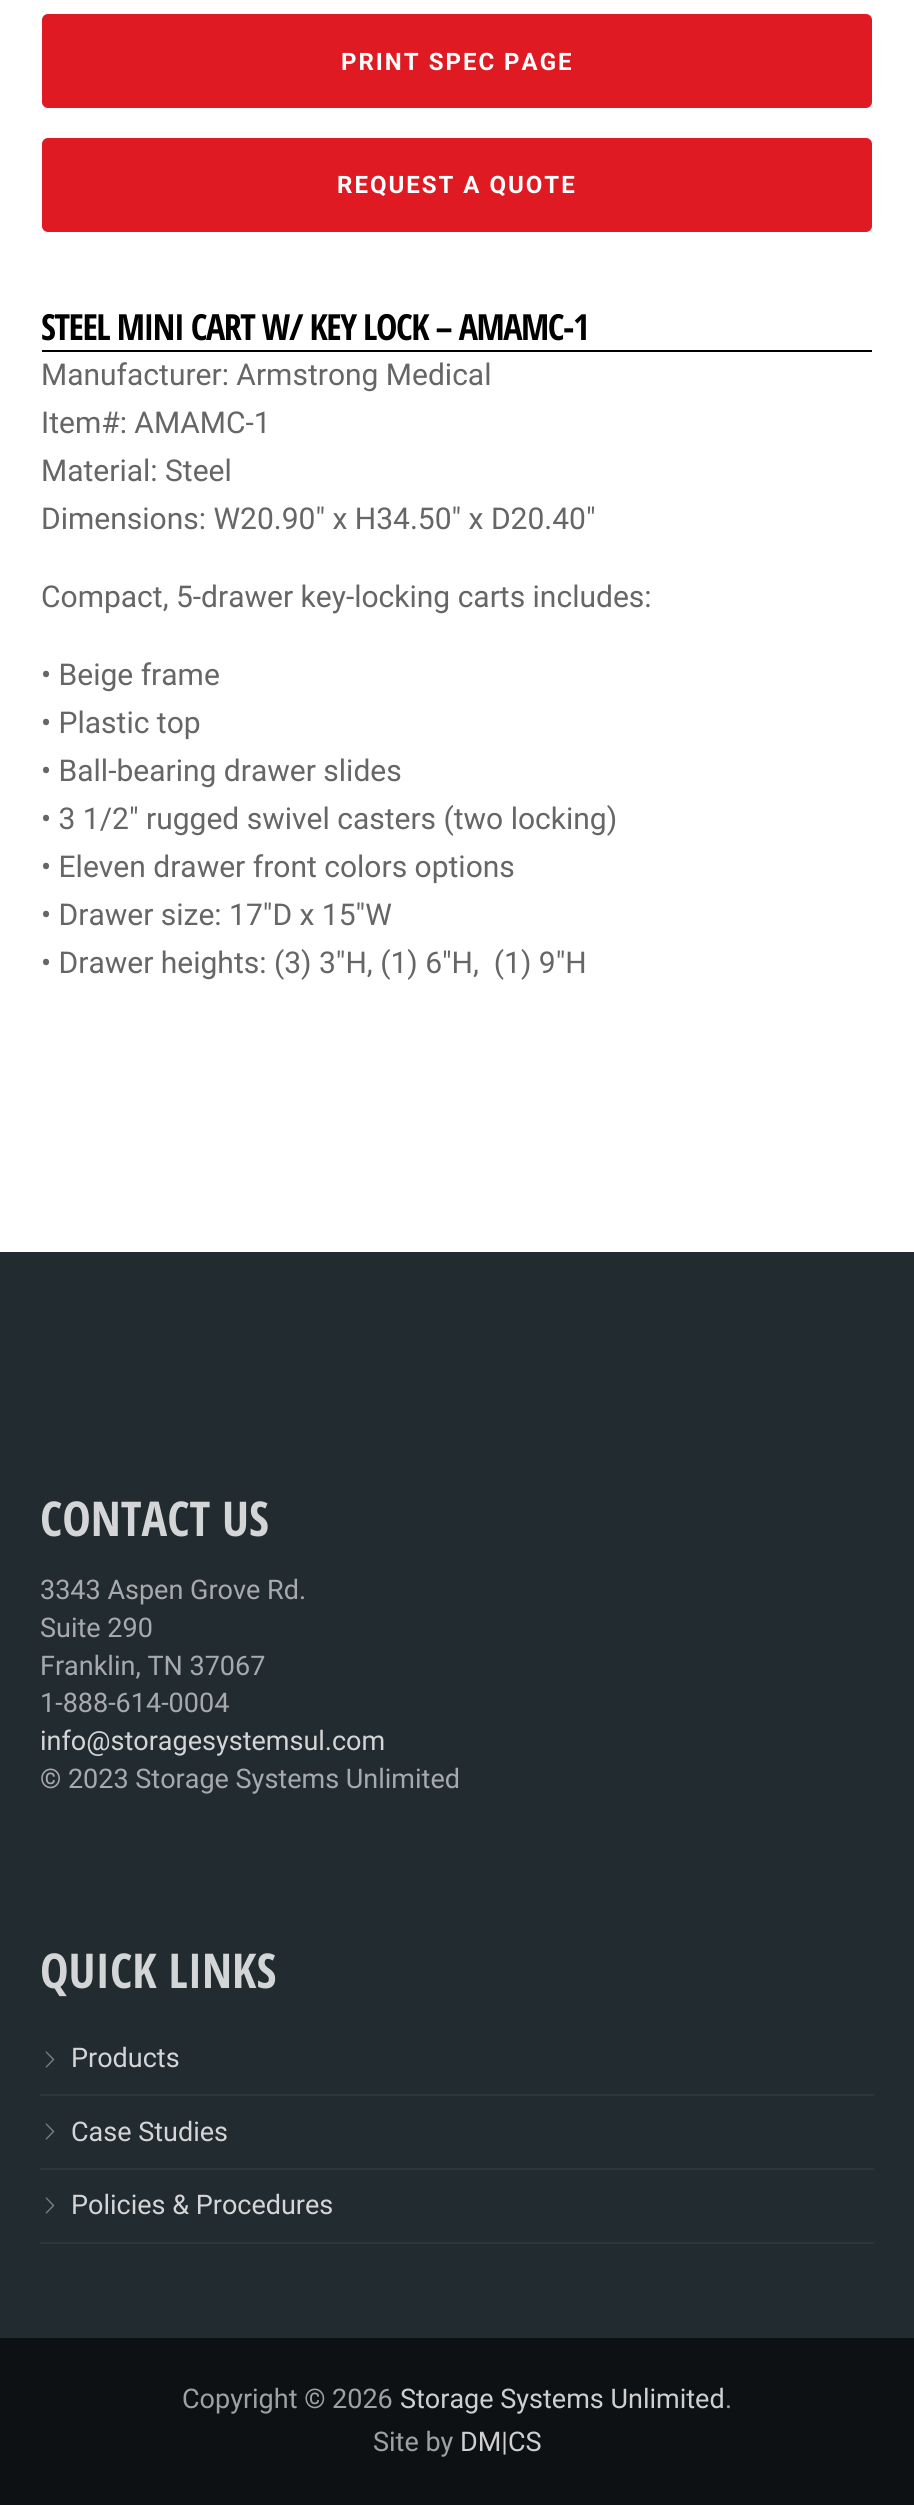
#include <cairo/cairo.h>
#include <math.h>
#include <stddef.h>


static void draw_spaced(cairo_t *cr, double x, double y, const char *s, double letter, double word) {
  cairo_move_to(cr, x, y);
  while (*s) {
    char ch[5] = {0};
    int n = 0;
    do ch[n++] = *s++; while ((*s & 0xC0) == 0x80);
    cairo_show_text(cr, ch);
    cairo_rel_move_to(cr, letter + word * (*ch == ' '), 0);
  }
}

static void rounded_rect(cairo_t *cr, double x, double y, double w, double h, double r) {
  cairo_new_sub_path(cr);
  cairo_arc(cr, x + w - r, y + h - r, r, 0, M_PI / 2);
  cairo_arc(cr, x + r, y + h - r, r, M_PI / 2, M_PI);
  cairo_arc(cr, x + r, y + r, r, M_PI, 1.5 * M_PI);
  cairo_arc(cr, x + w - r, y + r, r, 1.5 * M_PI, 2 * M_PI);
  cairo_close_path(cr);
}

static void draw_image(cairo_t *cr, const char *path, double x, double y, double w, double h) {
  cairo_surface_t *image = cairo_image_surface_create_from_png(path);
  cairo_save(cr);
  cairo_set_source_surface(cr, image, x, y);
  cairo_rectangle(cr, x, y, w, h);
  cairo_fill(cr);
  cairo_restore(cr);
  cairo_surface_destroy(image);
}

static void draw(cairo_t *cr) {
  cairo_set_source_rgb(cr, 1, 1, 1);
  cairo_paint(cr);
  cairo_set_source_rgb(cr, 224 / 255.0, 26 / 255.0, 34 / 255.0);
  rounded_rect(cr, 42, 14, 830, 94, 6);
  cairo_fill(cr);
  rounded_rect(cr, 42, 138, 830, 94, 6);
  cairo_fill(cr);
  cairo_set_source_rgb(cr, 0, 0, 0);
  cairo_rectangle(cr, 42, 350, 830, 2);
  cairo_fill(cr);
  cairo_set_source_rgb(cr, 34 / 255.0, 43 / 255.0, 48 / 255.0);
  cairo_rectangle(cr, 0, 1252, 914, 1086);
  cairo_fill(cr);
  cairo_set_source_rgb(cr, 45 / 255.0, 54 / 255.0, 58 / 255.0);
  cairo_rectangle(cr, 40, 2094, 834, 2);
  cairo_fill(cr);
  draw_image(cr, "images/1.png", 45, 2051, 10, 17);
  cairo_rectangle(cr, 40, 2168, 834, 2);
  cairo_fill(cr);
  draw_image(cr, "images/1.png", 45, 2123, 10, 17);
  cairo_rectangle(cr, 40, 2242, 834, 2);
  cairo_fill(cr);
  draw_image(cr, "images/1.png", 45, 2197, 10, 17);
  cairo_set_source_rgb(cr, 14 / 255.0, 17 / 255.0, 19 / 255.0);
  cairo_rectangle(cr, 0, 2338, 914, 167);
  cairo_fill(cr);
  cairo_select_font_face(cr, "Roboto", CAIRO_FONT_SLANT_NORMAL, CAIRO_FONT_WEIGHT_BOLD);
  cairo_set_font_size(cr, 24);
  cairo_set_source_rgb(cr, 1, 1, 1);
  draw_spaced(cr, 341, 70, "PRINT SPEC PAGE", 2, 0);
  draw_spaced(cr, 337, 193, "REQUEST A QUOTE", 2, 0);
  cairo_select_font_face(cr, "Open Sans Condensed", CAIRO_FONT_SLANT_NORMAL, CAIRO_FONT_WEIGHT_BOLD);
  cairo_set_font_size(cr, 36);
  cairo_set_source_rgb(cr, 0, 0, 0);
  draw_spaced(cr, 41, 340, "STEEL MINI CART W/ KEY LOCK – AMAMC-1", -1.45, 0);
  cairo_select_font_face(cr, "Roboto", CAIRO_FONT_SLANT_NORMAL, CAIRO_FONT_WEIGHT_NORMAL);
  cairo_set_font_size(cr, 30);
  cairo_set_source_rgb(cr, 102 / 255.0, 102 / 255.0, 102 / 255.0);
  cairo_move_to(cr, 41, 385);
  cairo_show_text(cr, "Manufacturer: Armstrong Medical");
  cairo_move_to(cr, 41, 433);
  cairo_show_text(cr, "Item#: AMAMC-1");
  cairo_move_to(cr, 41, 481);
  cairo_show_text(cr, "Material: Steel");
  cairo_move_to(cr, 41, 529);
  cairo_show_text(cr, "Dimensions: W20.90\" x H34.50\" x D20.40\"");
  cairo_move_to(cr, 41, 607);
  cairo_show_text(cr, "Compact, 5-drawer key-locking carts includes:");
  cairo_move_to(cr, 41, 685);
  cairo_show_text(cr, "• Beige frame");
  cairo_move_to(cr, 41, 733);
  cairo_show_text(cr, "• Plastic top");
  cairo_move_to(cr, 41, 781);
  cairo_show_text(cr, "• Ball-bearing drawer slides");
  cairo_move_to(cr, 41, 829);
  cairo_show_text(cr, "• 3 1/2″ rugged swivel casters (two locking)");
  cairo_move_to(cr, 41, 877);
  cairo_show_text(cr, "• Eleven drawer front colors options");
  cairo_move_to(cr, 41, 925);
  cairo_show_text(cr, "• Drawer size: 17″D x 15″W");
  cairo_move_to(cr, 41, 973);
  cairo_show_text(cr, "• Drawer heights: (3) 3″H, (1) 6″H,  (1) 9″H");
  cairo_select_font_face(cr, "Open Sans Condensed", CAIRO_FONT_SLANT_NORMAL, CAIRO_FONT_WEIGHT_BOLD);
  cairo_set_font_size(cr, 48);
  cairo_set_source_rgb(cr, 211 / 255.0, 213 / 255.0, 214 / 255.0);
  cairo_move_to(cr, 40, 1536);
  cairo_show_text(cr, "CONTACT US");
  cairo_select_font_face(cr, "Roboto", CAIRO_FONT_SLANT_NORMAL, CAIRO_FONT_WEIGHT_NORMAL);
  cairo_set_font_size(cr, 27);
  cairo_set_source_rgb(cr, 167 / 255.0, 170 / 255.0, 172 / 255.0);
  cairo_move_to(cr, 40, 1599);
  cairo_show_text(cr, "3343 Aspen Grove Rd.");
  cairo_move_to(cr, 40, 1637);
  cairo_show_text(cr, "Suite 290");
  cairo_move_to(cr, 40, 1675);
  cairo_show_text(cr, "Franklin, TN 37067");
  cairo_move_to(cr, 40, 1712);
  cairo_show_text(cr, "1-888-614-0004");
  cairo_set_source_rgb(cr, 211 / 255.0, 213 / 255.0, 214 / 255.0);
  cairo_move_to(cr, 40, 1750);
  cairo_show_text(cr, "info@storagesystemsul.com");
  cairo_set_source_rgb(cr, 167 / 255.0, 170 / 255.0, 172 / 255.0);
  cairo_move_to(cr, 40, 1788);
  cairo_show_text(cr, "© 2023 Storage Systems Unlimited");
  cairo_select_font_face(cr, "Open Sans Condensed", CAIRO_FONT_SLANT_NORMAL, CAIRO_FONT_WEIGHT_BOLD);
  cairo_set_font_size(cr, 48);
  cairo_set_source_rgb(cr, 211 / 255.0, 213 / 255.0, 214 / 255.0);
  cairo_move_to(cr, 40, 1988);
  cairo_show_text(cr, "QUICK LINKS");
  cairo_select_font_face(cr, "Roboto", CAIRO_FONT_SLANT_NORMAL, CAIRO_FONT_WEIGHT_NORMAL);
  cairo_set_font_size(cr, 27);
  cairo_move_to(cr, 71, 2067);
  cairo_show_text(cr, "Products");
  cairo_move_to(cr, 71, 2141);
  cairo_show_text(cr, "Case Studies");
  cairo_move_to(cr, 71, 2214);
  cairo_show_text(cr, "Policies & Procedures");
  cairo_set_source_rgb(cr, 159 / 255.0, 160 / 255.0, 161 / 255.0);
  cairo_move_to(cr, 182, 2408);
  cairo_show_text(cr, "Copyright © 2026");
  cairo_set_source_rgb(cr, 207 / 255.0, 207 / 255.0, 208 / 255.0);
  cairo_move_to(cr, 400, 2408);
  cairo_show_text(cr, "Storage Systems Unlimited");
  cairo_set_source_rgb(cr, 159 / 255.0, 160 / 255.0, 161 / 255.0);
  cairo_move_to(cr, 725, 2408);
  cairo_show_text(cr, ".");
  cairo_move_to(cr, 373, 2451);
  cairo_show_text(cr, "Site by");
  cairo_set_source_rgb(cr, 207 / 255.0, 207 / 255.0, 208 / 255.0);
  cairo_move_to(cr, 460, 2451);
  cairo_show_text(cr, "DM|CS");
}

int main(void) {
  cairo_surface_t *surface = cairo_image_surface_create(CAIRO_FORMAT_RGB24, 914, 2505);
  cairo_t *cr = cairo_create(surface);
  cairo_font_options_t *options = cairo_font_options_create();
  cairo_font_options_set_hint_metrics(options, CAIRO_HINT_METRICS_OFF);
  cairo_font_options_set_hint_style(options, CAIRO_HINT_STYLE_NONE);
  cairo_set_font_options(cr, options);
  cairo_set_miter_limit(cr, 4);
  draw(cr);
  cairo_surface_write_to_png(surface, "out.png");
  cairo_font_options_destroy(options);
  cairo_destroy(cr);
  cairo_surface_destroy(surface);
  return 0;
}
